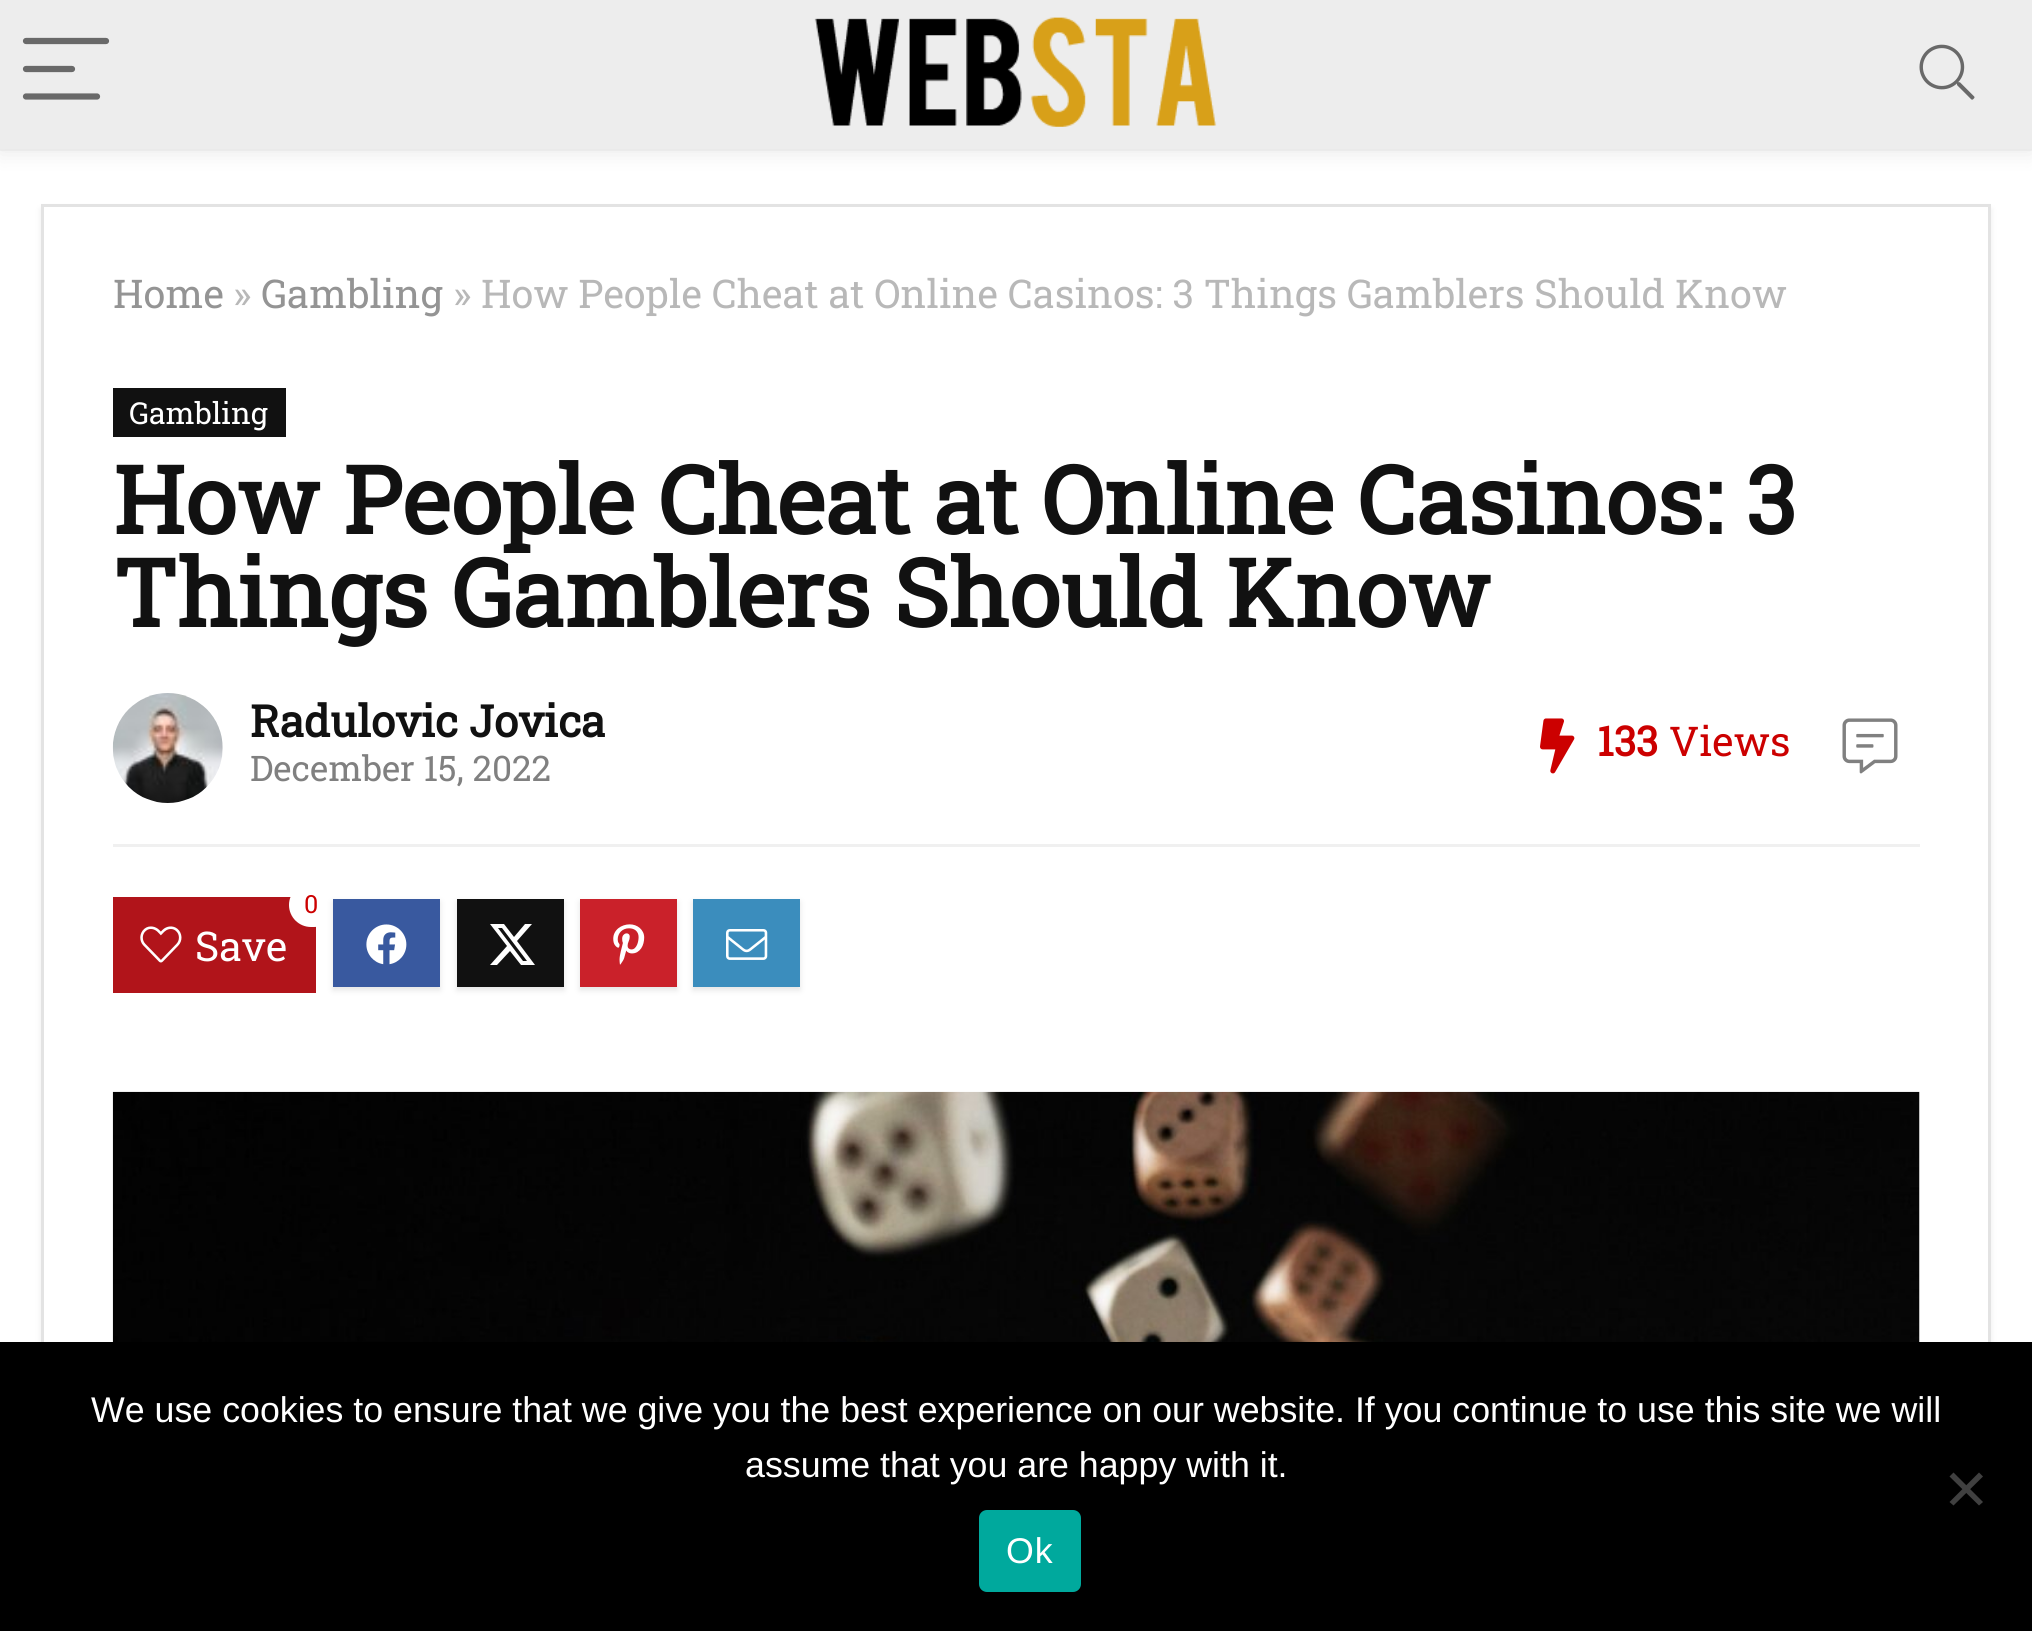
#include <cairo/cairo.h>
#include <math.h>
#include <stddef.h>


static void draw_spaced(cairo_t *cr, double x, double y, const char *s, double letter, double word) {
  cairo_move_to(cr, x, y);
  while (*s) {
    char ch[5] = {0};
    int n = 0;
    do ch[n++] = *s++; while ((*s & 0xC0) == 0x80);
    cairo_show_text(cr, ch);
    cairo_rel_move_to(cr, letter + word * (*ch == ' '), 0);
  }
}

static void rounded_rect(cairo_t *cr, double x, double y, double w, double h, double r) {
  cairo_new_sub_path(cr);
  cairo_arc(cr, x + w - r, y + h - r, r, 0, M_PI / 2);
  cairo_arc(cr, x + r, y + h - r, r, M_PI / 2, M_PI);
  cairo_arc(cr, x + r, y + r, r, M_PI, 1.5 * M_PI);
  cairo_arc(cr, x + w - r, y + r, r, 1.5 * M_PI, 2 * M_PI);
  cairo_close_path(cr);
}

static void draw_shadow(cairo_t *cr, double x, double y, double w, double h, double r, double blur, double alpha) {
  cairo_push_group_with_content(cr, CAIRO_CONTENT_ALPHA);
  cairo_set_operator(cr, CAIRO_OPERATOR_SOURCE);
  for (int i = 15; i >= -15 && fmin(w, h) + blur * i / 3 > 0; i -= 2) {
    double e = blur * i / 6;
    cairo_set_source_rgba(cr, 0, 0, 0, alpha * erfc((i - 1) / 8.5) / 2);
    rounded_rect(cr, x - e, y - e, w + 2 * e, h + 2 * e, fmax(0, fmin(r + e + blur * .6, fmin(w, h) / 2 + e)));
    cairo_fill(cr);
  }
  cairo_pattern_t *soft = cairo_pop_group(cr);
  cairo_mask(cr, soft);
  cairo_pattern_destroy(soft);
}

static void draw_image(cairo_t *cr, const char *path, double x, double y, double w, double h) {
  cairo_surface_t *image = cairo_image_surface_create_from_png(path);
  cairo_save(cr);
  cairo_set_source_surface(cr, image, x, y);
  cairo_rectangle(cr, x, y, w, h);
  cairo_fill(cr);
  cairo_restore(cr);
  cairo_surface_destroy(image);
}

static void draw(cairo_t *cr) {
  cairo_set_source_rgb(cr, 1, 1, 1);
  cairo_paint(cr);
  cairo_rectangle(cr, -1.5, -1.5, 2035, 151);
  cairo_set_source_rgb(cr, 247 / 255.0, 247 / 255.0, 247 / 255.0);
  cairo_set_line_width(cr, 3);
  cairo_stroke(cr);
  cairo_set_source_rgb(cr, 0, 0, 0);
  draw_shadow(cr, 0, 3, 2032, 148, 0, 11, 0.1);
  cairo_set_source_rgb(cr, 237 / 255.0, 237 / 255.0, 237 / 255.0);
  cairo_rectangle(cr, 0, 0, 2032, 149);
  cairo_fill(cr);
  cairo_new_path(cr);
  cairo_move_to(cr, 26, 41);
  cairo_line_to(cr, 106, 41);
  cairo_set_source_rgb(cr, 105 / 255.0, 105 / 255.0, 105 / 255.0);
  cairo_set_line_width(cr, 6.2);
  cairo_set_line_cap(cr, CAIRO_LINE_CAP_ROUND);
  cairo_stroke(cr);
  cairo_new_path(cr);
  cairo_move_to(cr, 26, 69);
  cairo_line_to(cr, 72, 69);
  cairo_stroke(cr);
  cairo_new_path(cr);
  cairo_move_to(cr, 26, 96.5);
  cairo_line_to(cr, 97, 96.5);
  cairo_stroke(cr);
  draw_image(cr, "images/1.png", 814, 17, 403, 110);
  draw_image(cr, "images/2.png", 1919, 44, 56, 56);
  cairo_set_source_rgb(cr, 236 / 255.0, 236 / 255.0, 236 / 255.0);
  draw_shadow(cr, 41, 209, 1950, 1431, 0, 3, 1);
  cairo_set_source_rgb(cr, 1, 1, 1);
  cairo_rectangle(cr, 44, 207, 1944, 1135);
  cairo_fill(cr);
  cairo_rectangle(cr, 42.5, 205.5, 1947, 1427);
  cairo_set_source_rgb(cr, 227 / 255.0, 227 / 255.0, 227 / 255.0);
  cairo_set_line_width(cr, 3);
  cairo_set_line_cap(cr, CAIRO_LINE_CAP_BUTT);
  cairo_stroke(cr);
  cairo_set_source_rgb(cr, 17 / 255.0, 17 / 255.0, 17 / 255.0);
  cairo_rectangle(cr, 113, 388, 173, 49);
  cairo_fill(cr);
  cairo_set_source_rgb(cr, 240 / 255.0, 240 / 255.0, 240 / 255.0);
  cairo_rectangle(cr, 113, 844, 1807, 3);
  cairo_fill(cr);
  draw_image(cr, "images/3.png", 112, 693, 111, 110);
  draw_image(cr, "images/4.png", 1540, 718, 35, 56);
  draw_image(cr, "images/5.png", 1842, 718, 56, 56);
  cairo_set_source_rgb(cr, 177 / 255.0, 20 / 255.0, 26 / 255.0);
  cairo_rectangle(cr, 113, 897, 203, 96);
  cairo_fill(cr);
  cairo_save(cr);
  cairo_rectangle(cr, 113, 888, 1807, 121);
  cairo_clip(cr);
  cairo_set_source_rgb(cr, 1, 1, 1);
  rounded_rect(cr, 289, 883, 47, 44, 22);
  cairo_fill(cr);
  cairo_restore(cr);
  draw_image(cr, "images/6.png", 140, 926, 42, 37);
  cairo_set_source_rgb(cr, 228 / 255.0, 228 / 255.0, 228 / 255.0);
  draw_shadow(cr, 333, 902, 107, 88, 0, 3, 1);
  cairo_set_source_rgb(cr, 57 / 255.0, 89 / 255.0, 159 / 255.0);
  cairo_rectangle(cr, 333, 899, 107, 88);
  cairo_fill(cr);
  draw_image(cr, "images/7.png", 366, 924, 41, 41);
  cairo_set_source_rgb(cr, 228 / 255.0, 228 / 255.0, 228 / 255.0);
  draw_shadow(cr, 457, 902, 107, 88, 0, 3, 1);
  cairo_set_source_rgb(cr, 17 / 255.0, 17 / 255.0, 17 / 255.0);
  cairo_rectangle(cr, 457, 899, 107, 88);
  cairo_fill(cr);
  cairo_set_source_rgb(cr, 1, 1, 1);
  cairo_new_path(cr);
  cairo_move_to(cr, 525, 924);
  cairo_line_to(cr, 532, 924);
  cairo_line_to(cr, 517, 941);
  cairo_line_to(cr, 535, 965);
  cairo_line_to(cr, 521, 965);
  cairo_line_to(cr, 510, 951);
  cairo_line_to(cr, 497, 965);
  cairo_line_to(cr, 490, 965);
  cairo_line_to(cr, 507, 946);
  cairo_line_to(cr, 490, 924);
  cairo_line_to(cr, 504, 924);
  cairo_line_to(cr, 514, 937);
  cairo_close_path(cr);
  cairo_move_to(cr, 523, 961);
  cairo_line_to(cr, 527, 961);
  cairo_line_to(cr, 502, 928);
  cairo_line_to(cr, 498, 928);
  cairo_close_path(cr);
  cairo_fill(cr);
  cairo_set_source_rgb(cr, 228 / 255.0, 228 / 255.0, 228 / 255.0);
  draw_shadow(cr, 580, 902, 97, 88, 0, 3, 1);
  cairo_set_source_rgb(cr, 202 / 255.0, 33 / 255.0, 42 / 255.0);
  cairo_rectangle(cr, 580, 899, 97, 88);
  cairo_fill(cr);
  draw_image(cr, "images/8.png", 613, 924, 32, 41);
  cairo_set_source_rgb(cr, 228 / 255.0, 228 / 255.0, 228 / 255.0);
  draw_shadow(cr, 693, 902, 107, 88, 0, 3, 1);
  cairo_set_source_rgb(cr, 59 / 255.0, 141 / 255.0, 189 / 255.0);
  cairo_rectangle(cr, 693, 899, 107, 88);
  cairo_fill(cr);
  draw_image(cr, "images/9.png", 726, 929, 42, 31);
  draw_image(cr, "images/10.png", 112, 1091, 1808, 251);
  cairo_set_source_rgb(cr, 0, 0, 0);
  cairo_rectangle(cr, 0, 1342, 2032, 289);
  cairo_fill(cr);
  cairo_set_source_rgb(cr, 64 / 255.0, 64 / 255.0, 64 / 255.0);
  cairo_new_path(cr);
  cairo_move_to(cr, 1979, 1472.5);
  cairo_line_to(cr, 1983, 1476.5);
  cairo_line_to(cr, 1953.5, 1505.5);
  cairo_line_to(cr, 1949.5, 1502);
  cairo_close_path(cr);
  cairo_fill(cr);
  cairo_new_path(cr);
  cairo_move_to(cr, 1949.5, 1476.5);
  cairo_line_to(cr, 1953.5, 1472.5);
  cairo_line_to(cr, 1983, 1502);
  cairo_line_to(cr, 1979, 1505.5);
  cairo_close_path(cr);
  cairo_fill(cr);
  cairo_set_source_rgb(cr, 0, 169 / 255.0, 157 / 255.0);
  rounded_rect(cr, 979, 1510, 102, 82, 8);
  cairo_fill(cr);
  cairo_select_font_face(cr, "Roboto Slab", CAIRO_FONT_SLANT_NORMAL, CAIRO_FONT_WEIGHT_NORMAL);
  cairo_set_font_size(cr, 39.6);
  cairo_set_source_rgb(cr, 148 / 255.0, 148 / 255.0, 148 / 255.0);
  cairo_move_to(cr, 113, 308);
  cairo_show_text(cr, "Home");
  cairo_set_source_rgb(cr, 184 / 255.0, 184 / 255.0, 184 / 255.0);
  cairo_move_to(cr, 233, 308);
  cairo_show_text(cr, "»");
  cairo_set_source_rgb(cr, 148 / 255.0, 148 / 255.0, 148 / 255.0);
  cairo_move_to(cr, 261, 308);
  cairo_show_text(cr, "Gambling");
  cairo_set_source_rgb(cr, 184 / 255.0, 184 / 255.0, 184 / 255.0);
  cairo_move_to(cr, 453, 308);
  cairo_show_text(cr, "» How People Cheat at Online Casinos: 3 Things Gamblers Should Know");
  cairo_set_font_size(cr, 30.25);
  cairo_set_source_rgb(cr, 1, 1, 1);
  cairo_move_to(cr, 129, 424);
  cairo_show_text(cr, "Gambling");
  cairo_select_font_face(cr, "Roboto Slab", CAIRO_FONT_SLANT_NORMAL, CAIRO_FONT_WEIGHT_BOLD);
  cairo_set_font_size(cr, 93.5);
  cairo_set_source_rgb(cr, 17 / 255.0, 17 / 255.0, 17 / 255.0);
  cairo_move_to(cr, 113, 534);
  cairo_show_text(cr, "How People Cheat at Online Casinos: 3");
  cairo_move_to(cr, 113, 627);
  cairo_show_text(cr, "Things Gamblers Should Know");
  cairo_set_font_size(cr, 44);
  cairo_move_to(cr, 250, 737);
  cairo_show_text(cr, "Radulovic Jovica");
  cairo_select_font_face(cr, "Roboto Slab", CAIRO_FONT_SLANT_NORMAL, CAIRO_FONT_WEIGHT_NORMAL);
  cairo_set_font_size(cr, 35.25);
  cairo_set_source_rgb(cr, 128 / 255.0, 128 / 255.0, 128 / 255.0);
  cairo_move_to(cr, 250, 781);
  cairo_show_text(cr, "December 15, 2022");
  cairo_select_font_face(cr, "Roboto Slab", CAIRO_FONT_SLANT_NORMAL, CAIRO_FONT_WEIGHT_BOLD);
  cairo_set_font_size(cr, 41);
  cairo_set_source_rgb(cr, 204 / 255.0, 0, 0);
  cairo_move_to(cr, 1597, 756);
  cairo_show_text(cr, "133");
  cairo_select_font_face(cr, "Roboto Slab", CAIRO_FONT_SLANT_NORMAL, CAIRO_FONT_WEIGHT_NORMAL);
  cairo_move_to(cr, 1669, 756);
  cairo_show_text(cr, "Views");
  cairo_set_font_size(cr, 25);
  cairo_move_to(cr, 304, 913);
  cairo_show_text(cr, "0");
  cairo_set_font_size(cr, 41);
  cairo_set_source_rgb(cr, 1, 1, 1);
  cairo_move_to(cr, 195, 961);
  cairo_show_text(cr, "Save");
  cairo_select_font_face(cr, "Liberation Sans", CAIRO_FONT_SLANT_NORMAL, CAIRO_FONT_WEIGHT_NORMAL);
  cairo_set_font_size(cr, 35.75);
  cairo_move_to(cr, 91, 1422);
  cairo_show_text(cr, "We use cookies to ensure that we give you the best experience on our website. If you continue to use this site we will");
  cairo_move_to(cr, 745, 1477);
  cairo_show_text(cr, "assume that you are happy with it.");
  draw_spaced(cr, 1006, 1563, "Ok", 1, 0);
}

int main(void) {
  cairo_surface_t *surface = cairo_image_surface_create(CAIRO_FORMAT_RGB24, 2032, 1631);
  cairo_t *cr = cairo_create(surface);
  cairo_font_options_t *options = cairo_font_options_create();
  cairo_font_options_set_hint_metrics(options, CAIRO_HINT_METRICS_OFF);
  cairo_font_options_set_hint_style(options, CAIRO_HINT_STYLE_NONE);
  cairo_set_font_options(cr, options);
  cairo_set_miter_limit(cr, 4);
  draw(cr);
  cairo_surface_write_to_png(surface, "out.png");
  cairo_font_options_destroy(options);
  cairo_destroy(cr);
  cairo_surface_destroy(surface);
  return 0;
}
